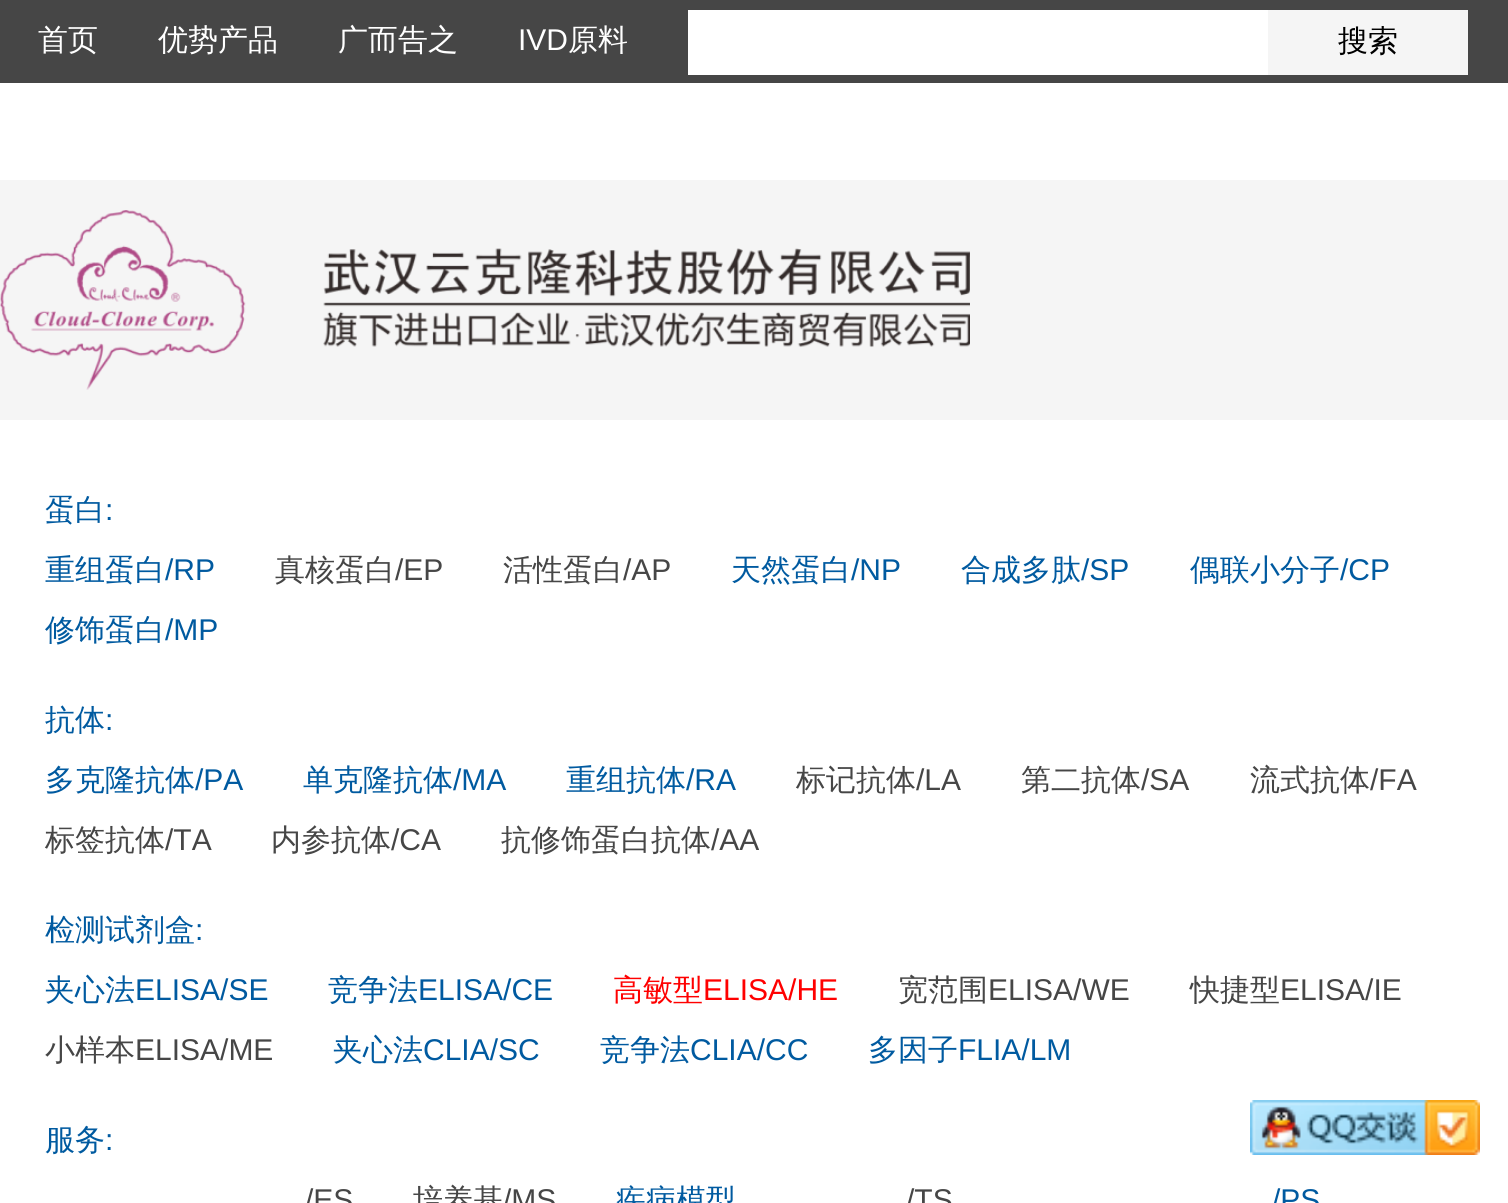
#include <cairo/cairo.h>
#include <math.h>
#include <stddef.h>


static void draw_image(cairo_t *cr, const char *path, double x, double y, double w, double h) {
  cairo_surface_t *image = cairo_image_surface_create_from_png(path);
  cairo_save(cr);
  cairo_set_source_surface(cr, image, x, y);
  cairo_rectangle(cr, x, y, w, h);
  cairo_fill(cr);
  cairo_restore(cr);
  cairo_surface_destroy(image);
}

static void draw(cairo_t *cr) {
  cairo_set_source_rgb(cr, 1, 1, 1);
  cairo_paint(cr);
  cairo_set_source_rgb(cr, 245 / 255.0, 245 / 255.0, 245 / 255.0);
  cairo_rectangle(cr, 0, 180, 1508, 240);
  cairo_fill(cr);
  cairo_set_source_rgb(cr, 70 / 255.0, 70 / 255.0, 70 / 255.0);
  cairo_rectangle(cr, 0, 0, 1508, 83);
  cairo_fill(cr);
  cairo_set_source_rgb(cr, 1, 1, 1);
  cairo_rectangle(cr, 688, 10, 580, 65);
  cairo_fill(cr);
  cairo_set_source_rgb(cr, 245 / 255.0, 245 / 255.0, 245 / 255.0);
  cairo_rectangle(cr, 1268, 10, 200, 65);
  cairo_fill(cr);
  draw_image(cr, "images/1.png", 0, 210, 970, 180);
  draw_image(cr, "images/2.png", 1250, 1100, 230, 55);
  cairo_select_font_face(cr, "WenQuanYi Zen Hei Medium", CAIRO_FONT_SLANT_NORMAL, CAIRO_FONT_WEIGHT_NORMAL);
  cairo_set_font_size(cr, 30);
  cairo_set_source_rgb(cr, 1, 1, 1);
  cairo_move_to(cr, 38, 50);
  cairo_show_text(cr, "首页");
  cairo_move_to(cr, 158, 50);
  cairo_show_text(cr, "优势产品");
  cairo_move_to(cr, 338, 50);
  cairo_show_text(cr, "广而告之");
  cairo_select_font_face(cr, "Liberation Sans", CAIRO_FONT_SLANT_NORMAL, CAIRO_FONT_WEIGHT_NORMAL);
  cairo_move_to(cr, 518, 50);
  cairo_show_text(cr, "IVD");
  cairo_select_font_face(cr, "WenQuanYi Zen Hei Medium", CAIRO_FONT_SLANT_NORMAL, CAIRO_FONT_WEIGHT_NORMAL);
  cairo_move_to(cr, 568, 50);
  cairo_show_text(cr, "原料");
  cairo_set_source_rgb(cr, 0, 0, 0);
  cairo_move_to(cr, 1338, 51);
  cairo_show_text(cr, "搜索");
  cairo_set_source_rgb(cr, 0, 90 / 255.0, 160 / 255.0);
  cairo_move_to(cr, 45, 520);
  cairo_show_text(cr, "蛋白");
  cairo_select_font_face(cr, "Liberation Sans", CAIRO_FONT_SLANT_NORMAL, CAIRO_FONT_WEIGHT_NORMAL);
  cairo_move_to(cr, 105, 520);
  cairo_show_text(cr, ":");
  cairo_select_font_face(cr, "WenQuanYi Zen Hei Medium", CAIRO_FONT_SLANT_NORMAL, CAIRO_FONT_WEIGHT_NORMAL);
  cairo_move_to(cr, 45, 580);
  cairo_show_text(cr, "重组蛋白");
  cairo_select_font_face(cr, "Liberation Sans", CAIRO_FONT_SLANT_NORMAL, CAIRO_FONT_WEIGHT_NORMAL);
  cairo_move_to(cr, 165, 580);
  cairo_show_text(cr, "/RP");
  cairo_select_font_face(cr, "WenQuanYi Zen Hei Medium", CAIRO_FONT_SLANT_NORMAL, CAIRO_FONT_WEIGHT_NORMAL);
  cairo_set_source_rgb(cr, 70 / 255.0, 70 / 255.0, 70 / 255.0);
  cairo_move_to(cr, 275, 580);
  cairo_show_text(cr, "真核蛋白");
  cairo_select_font_face(cr, "Liberation Sans", CAIRO_FONT_SLANT_NORMAL, CAIRO_FONT_WEIGHT_NORMAL);
  cairo_move_to(cr, 395, 580);
  cairo_show_text(cr, "/EP");
  cairo_select_font_face(cr, "WenQuanYi Zen Hei Medium", CAIRO_FONT_SLANT_NORMAL, CAIRO_FONT_WEIGHT_NORMAL);
  cairo_move_to(cr, 503, 580);
  cairo_show_text(cr, "活性蛋白");
  cairo_select_font_face(cr, "Liberation Sans", CAIRO_FONT_SLANT_NORMAL, CAIRO_FONT_WEIGHT_NORMAL);
  cairo_move_to(cr, 623, 580);
  cairo_show_text(cr, "/AP");
  cairo_select_font_face(cr, "WenQuanYi Zen Hei Medium", CAIRO_FONT_SLANT_NORMAL, CAIRO_FONT_WEIGHT_NORMAL);
  cairo_set_source_rgb(cr, 0, 90 / 255.0, 160 / 255.0);
  cairo_move_to(cr, 731, 580);
  cairo_show_text(cr, "天然蛋白");
  cairo_select_font_face(cr, "Liberation Sans", CAIRO_FONT_SLANT_NORMAL, CAIRO_FONT_WEIGHT_NORMAL);
  cairo_move_to(cr, 851, 580);
  cairo_show_text(cr, "/NP");
  cairo_select_font_face(cr, "WenQuanYi Zen Hei Medium", CAIRO_FONT_SLANT_NORMAL, CAIRO_FONT_WEIGHT_NORMAL);
  cairo_move_to(cr, 961, 580);
  cairo_show_text(cr, "合成多肽");
  cairo_select_font_face(cr, "Liberation Sans", CAIRO_FONT_SLANT_NORMAL, CAIRO_FONT_WEIGHT_NORMAL);
  cairo_move_to(cr, 1081, 580);
  cairo_show_text(cr, "/SP");
  cairo_select_font_face(cr, "WenQuanYi Zen Hei Medium", CAIRO_FONT_SLANT_NORMAL, CAIRO_FONT_WEIGHT_NORMAL);
  cairo_move_to(cr, 1190, 580);
  cairo_show_text(cr, "偶联小分子");
  cairo_select_font_face(cr, "Liberation Sans", CAIRO_FONT_SLANT_NORMAL, CAIRO_FONT_WEIGHT_NORMAL);
  cairo_move_to(cr, 1340, 580);
  cairo_show_text(cr, "/CP");
  cairo_select_font_face(cr, "WenQuanYi Zen Hei Medium", CAIRO_FONT_SLANT_NORMAL, CAIRO_FONT_WEIGHT_NORMAL);
  cairo_move_to(cr, 45, 640);
  cairo_show_text(cr, "修饰蛋白");
  cairo_select_font_face(cr, "Liberation Sans", CAIRO_FONT_SLANT_NORMAL, CAIRO_FONT_WEIGHT_NORMAL);
  cairo_move_to(cr, 165, 640);
  cairo_show_text(cr, "/MP");
  cairo_select_font_face(cr, "WenQuanYi Zen Hei Medium", CAIRO_FONT_SLANT_NORMAL, CAIRO_FONT_WEIGHT_NORMAL);
  cairo_move_to(cr, 45, 730);
  cairo_show_text(cr, "抗体");
  cairo_select_font_face(cr, "Liberation Sans", CAIRO_FONT_SLANT_NORMAL, CAIRO_FONT_WEIGHT_NORMAL);
  cairo_move_to(cr, 105, 730);
  cairo_show_text(cr, ":");
  cairo_select_font_face(cr, "WenQuanYi Zen Hei Medium", CAIRO_FONT_SLANT_NORMAL, CAIRO_FONT_WEIGHT_NORMAL);
  cairo_move_to(cr, 45, 790);
  cairo_show_text(cr, "多克隆抗体");
  cairo_select_font_face(cr, "Liberation Sans", CAIRO_FONT_SLANT_NORMAL, CAIRO_FONT_WEIGHT_NORMAL);
  cairo_move_to(cr, 195, 790);
  cairo_show_text(cr, "/PA");
  cairo_select_font_face(cr, "WenQuanYi Zen Hei Medium", CAIRO_FONT_SLANT_NORMAL, CAIRO_FONT_WEIGHT_NORMAL);
  cairo_move_to(cr, 303, 790);
  cairo_show_text(cr, "单克隆抗体");
  cairo_select_font_face(cr, "Liberation Sans", CAIRO_FONT_SLANT_NORMAL, CAIRO_FONT_WEIGHT_NORMAL);
  cairo_move_to(cr, 453, 790);
  cairo_show_text(cr, "/MA");
  cairo_select_font_face(cr, "WenQuanYi Zen Hei Medium", CAIRO_FONT_SLANT_NORMAL, CAIRO_FONT_WEIGHT_NORMAL);
  cairo_move_to(cr, 566, 790);
  cairo_show_text(cr, "重组抗体");
  cairo_select_font_face(cr, "Liberation Sans", CAIRO_FONT_SLANT_NORMAL, CAIRO_FONT_WEIGHT_NORMAL);
  cairo_move_to(cr, 686, 790);
  cairo_show_text(cr, "/RA");
  cairo_select_font_face(cr, "WenQuanYi Zen Hei Medium", CAIRO_FONT_SLANT_NORMAL, CAIRO_FONT_WEIGHT_NORMAL);
  cairo_set_source_rgb(cr, 70 / 255.0, 70 / 255.0, 70 / 255.0);
  cairo_move_to(cr, 796, 790);
  cairo_show_text(cr, "标记抗体");
  cairo_select_font_face(cr, "Liberation Sans", CAIRO_FONT_SLANT_NORMAL, CAIRO_FONT_WEIGHT_NORMAL);
  cairo_move_to(cr, 916, 790);
  cairo_show_text(cr, "/LA");
  cairo_select_font_face(cr, "WenQuanYi Zen Hei Medium", CAIRO_FONT_SLANT_NORMAL, CAIRO_FONT_WEIGHT_NORMAL);
  cairo_move_to(cr, 1021, 790);
  cairo_show_text(cr, "第二抗体");
  cairo_select_font_face(cr, "Liberation Sans", CAIRO_FONT_SLANT_NORMAL, CAIRO_FONT_WEIGHT_NORMAL);
  cairo_move_to(cr, 1141, 790);
  cairo_show_text(cr, "/SA");
  cairo_select_font_face(cr, "WenQuanYi Zen Hei Medium", CAIRO_FONT_SLANT_NORMAL, CAIRO_FONT_WEIGHT_NORMAL);
  cairo_move_to(cr, 1250, 790);
  cairo_show_text(cr, "流式抗体");
  cairo_select_font_face(cr, "Liberation Sans", CAIRO_FONT_SLANT_NORMAL, CAIRO_FONT_WEIGHT_NORMAL);
  cairo_move_to(cr, 1370, 790);
  cairo_show_text(cr, "/FA");
  cairo_select_font_face(cr, "WenQuanYi Zen Hei Medium", CAIRO_FONT_SLANT_NORMAL, CAIRO_FONT_WEIGHT_NORMAL);
  cairo_move_to(cr, 45, 850);
  cairo_show_text(cr, "标签抗体");
  cairo_select_font_face(cr, "Liberation Sans", CAIRO_FONT_SLANT_NORMAL, CAIRO_FONT_WEIGHT_NORMAL);
  cairo_move_to(cr, 165, 850);
  cairo_show_text(cr, "/TA");
  cairo_select_font_face(cr, "WenQuanYi Zen Hei Medium", CAIRO_FONT_SLANT_NORMAL, CAIRO_FONT_WEIGHT_NORMAL);
  cairo_move_to(cr, 271, 850);
  cairo_show_text(cr, "内参抗体");
  cairo_select_font_face(cr, "Liberation Sans", CAIRO_FONT_SLANT_NORMAL, CAIRO_FONT_WEIGHT_NORMAL);
  cairo_move_to(cr, 391, 850);
  cairo_show_text(cr, "/CA");
  cairo_select_font_face(cr, "WenQuanYi Zen Hei Medium", CAIRO_FONT_SLANT_NORMAL, CAIRO_FONT_WEIGHT_NORMAL);
  cairo_move_to(cr, 501, 850);
  cairo_show_text(cr, "抗修饰蛋白抗体");
  cairo_select_font_face(cr, "Liberation Sans", CAIRO_FONT_SLANT_NORMAL, CAIRO_FONT_WEIGHT_NORMAL);
  cairo_move_to(cr, 711, 850);
  cairo_show_text(cr, "/AA");
  cairo_select_font_face(cr, "WenQuanYi Zen Hei Medium", CAIRO_FONT_SLANT_NORMAL, CAIRO_FONT_WEIGHT_NORMAL);
  cairo_set_source_rgb(cr, 0, 90 / 255.0, 160 / 255.0);
  cairo_move_to(cr, 45, 940);
  cairo_show_text(cr, "检测试剂盒");
  cairo_select_font_face(cr, "Liberation Sans", CAIRO_FONT_SLANT_NORMAL, CAIRO_FONT_WEIGHT_NORMAL);
  cairo_move_to(cr, 195, 940);
  cairo_show_text(cr, ":");
  cairo_select_font_face(cr, "WenQuanYi Zen Hei Medium", CAIRO_FONT_SLANT_NORMAL, CAIRO_FONT_WEIGHT_NORMAL);
  cairo_move_to(cr, 45, 1000);
  cairo_show_text(cr, "夹心法");
  cairo_select_font_face(cr, "Liberation Sans", CAIRO_FONT_SLANT_NORMAL, CAIRO_FONT_WEIGHT_NORMAL);
  cairo_move_to(cr, 135, 1000);
  cairo_show_text(cr, "ELISA/SE");
  cairo_select_font_face(cr, "WenQuanYi Zen Hei Medium", CAIRO_FONT_SLANT_NORMAL, CAIRO_FONT_WEIGHT_NORMAL);
  cairo_move_to(cr, 328, 1000);
  cairo_show_text(cr, "竞争法");
  cairo_select_font_face(cr, "Liberation Sans", CAIRO_FONT_SLANT_NORMAL, CAIRO_FONT_WEIGHT_NORMAL);
  cairo_move_to(cr, 418, 1000);
  cairo_show_text(cr, "ELISA/CE");
  cairo_select_font_face(cr, "WenQuanYi Zen Hei Medium", CAIRO_FONT_SLANT_NORMAL, CAIRO_FONT_WEIGHT_NORMAL);
  cairo_set_source_rgb(cr, 1, 0, 0);
  cairo_move_to(cr, 613, 1000);
  cairo_show_text(cr, "高敏型");
  cairo_select_font_face(cr, "Liberation Sans", CAIRO_FONT_SLANT_NORMAL, CAIRO_FONT_WEIGHT_NORMAL);
  cairo_move_to(cr, 703, 1000);
  cairo_show_text(cr, "ELISA/HE");
  cairo_select_font_face(cr, "WenQuanYi Zen Hei Medium", CAIRO_FONT_SLANT_NORMAL, CAIRO_FONT_WEIGHT_NORMAL);
  cairo_set_source_rgb(cr, 70 / 255.0, 70 / 255.0, 70 / 255.0);
  cairo_move_to(cr, 898, 1000);
  cairo_show_text(cr, "宽范围");
  cairo_select_font_face(cr, "Liberation Sans", CAIRO_FONT_SLANT_NORMAL, CAIRO_FONT_WEIGHT_NORMAL);
  cairo_move_to(cr, 988, 1000);
  cairo_show_text(cr, "ELISA/WE");
  cairo_select_font_face(cr, "WenQuanYi Zen Hei Medium", CAIRO_FONT_SLANT_NORMAL, CAIRO_FONT_WEIGHT_NORMAL);
  cairo_move_to(cr, 1190, 1000);
  cairo_show_text(cr, "快捷型");
  cairo_select_font_face(cr, "Liberation Sans", CAIRO_FONT_SLANT_NORMAL, CAIRO_FONT_WEIGHT_NORMAL);
  cairo_move_to(cr, 1280, 1000);
  cairo_show_text(cr, "ELISA/IE");
  cairo_select_font_face(cr, "WenQuanYi Zen Hei Medium", CAIRO_FONT_SLANT_NORMAL, CAIRO_FONT_WEIGHT_NORMAL);
  cairo_move_to(cr, 45, 1060);
  cairo_show_text(cr, "小样本");
  cairo_select_font_face(cr, "Liberation Sans", CAIRO_FONT_SLANT_NORMAL, CAIRO_FONT_WEIGHT_NORMAL);
  cairo_move_to(cr, 135, 1060);
  cairo_show_text(cr, "ELISA/ME");
  cairo_select_font_face(cr, "WenQuanYi Zen Hei Medium", CAIRO_FONT_SLANT_NORMAL, CAIRO_FONT_WEIGHT_NORMAL);
  cairo_set_source_rgb(cr, 0, 90 / 255.0, 160 / 255.0);
  cairo_move_to(cr, 333, 1060);
  cairo_show_text(cr, "夹心法");
  cairo_select_font_face(cr, "Liberation Sans", CAIRO_FONT_SLANT_NORMAL, CAIRO_FONT_WEIGHT_NORMAL);
  cairo_move_to(cr, 423, 1060);
  cairo_show_text(cr, "CLIA/SC");
  cairo_select_font_face(cr, "WenQuanYi Zen Hei Medium", CAIRO_FONT_SLANT_NORMAL, CAIRO_FONT_WEIGHT_NORMAL);
  cairo_move_to(cr, 600, 1060);
  cairo_show_text(cr, "竞争法");
  cairo_select_font_face(cr, "Liberation Sans", CAIRO_FONT_SLANT_NORMAL, CAIRO_FONT_WEIGHT_NORMAL);
  cairo_move_to(cr, 690, 1060);
  cairo_show_text(cr, "CLIA/CC");
  cairo_select_font_face(cr, "WenQuanYi Zen Hei Medium", CAIRO_FONT_SLANT_NORMAL, CAIRO_FONT_WEIGHT_NORMAL);
  cairo_move_to(cr, 868, 1060);
  cairo_show_text(cr, "多因子");
  cairo_select_font_face(cr, "Liberation Sans", CAIRO_FONT_SLANT_NORMAL, CAIRO_FONT_WEIGHT_NORMAL);
  cairo_move_to(cr, 958, 1060);
  cairo_show_text(cr, "FLIA/LM");
  cairo_select_font_face(cr, "WenQuanYi Zen Hei Medium", CAIRO_FONT_SLANT_NORMAL, CAIRO_FONT_WEIGHT_NORMAL);
  cairo_move_to(cr, 45, 1150);
  cairo_show_text(cr, "服务");
  cairo_select_font_face(cr, "Liberation Sans", CAIRO_FONT_SLANT_NORMAL, CAIRO_FONT_WEIGHT_NORMAL);
  cairo_move_to(cr, 105, 1150);
  cairo_show_text(cr, ":");
  cairo_set_source_rgb(cr, 70 / 255.0, 70 / 255.0, 70 / 255.0);
  cairo_move_to(cr, 305, 1210);
  cairo_show_text(cr, "/ES");
  cairo_select_font_face(cr, "WenQuanYi Zen Hei Medium", CAIRO_FONT_SLANT_NORMAL, CAIRO_FONT_WEIGHT_NORMAL);
  cairo_move_to(cr, 413, 1210);
  cairo_show_text(cr, "培养基");
  cairo_select_font_face(cr, "Liberation Sans", CAIRO_FONT_SLANT_NORMAL, CAIRO_FONT_WEIGHT_NORMAL);
  cairo_move_to(cr, 503, 1210);
  cairo_show_text(cr, "/MS");
  cairo_select_font_face(cr, "WenQuanYi Zen Hei Medium", CAIRO_FONT_SLANT_NORMAL, CAIRO_FONT_WEIGHT_NORMAL);
  cairo_set_source_rgb(cr, 0, 90 / 255.0, 160 / 255.0);
  cairo_move_to(cr, 616, 1210);
  cairo_show_text(cr, "疾病模型");
  cairo_select_font_face(cr, "Liberation Sans", CAIRO_FONT_SLANT_NORMAL, CAIRO_FONT_WEIGHT_NORMAL);
  cairo_set_source_rgb(cr, 70 / 255.0, 70 / 255.0, 70 / 255.0);
  cairo_move_to(cr, 906, 1210);
  cairo_show_text(cr, "/TS");
  cairo_set_source_rgb(cr, 0, 90 / 255.0, 160 / 255.0);
  cairo_move_to(cr, 1272, 1210);
  cairo_show_text(cr, "/PS");
}

int main(void) {
  cairo_surface_t *surface = cairo_image_surface_create(CAIRO_FORMAT_RGB24, 1508, 1203);
  cairo_t *cr = cairo_create(surface);
  cairo_font_options_t *options = cairo_font_options_create();
  cairo_font_options_set_hint_metrics(options, CAIRO_HINT_METRICS_OFF);
  cairo_font_options_set_hint_style(options, CAIRO_HINT_STYLE_NONE);
  cairo_set_font_options(cr, options);
  cairo_set_miter_limit(cr, 4);
  draw(cr);
  cairo_surface_write_to_png(surface, "out.png");
  cairo_font_options_destroy(options);
  cairo_destroy(cr);
  cairo_surface_destroy(surface);
  return 0;
}
